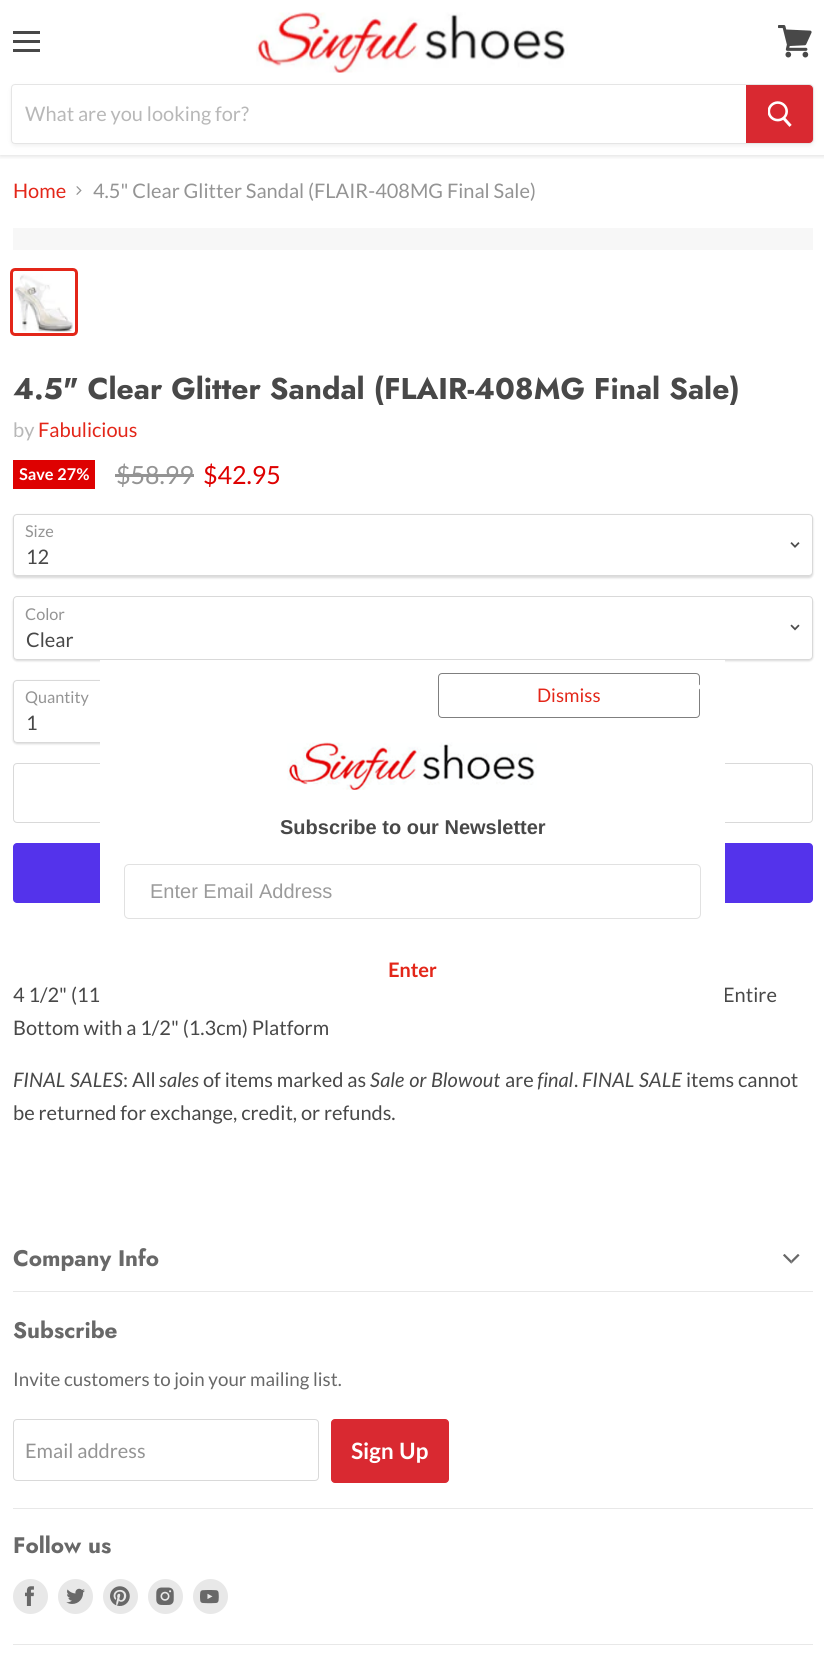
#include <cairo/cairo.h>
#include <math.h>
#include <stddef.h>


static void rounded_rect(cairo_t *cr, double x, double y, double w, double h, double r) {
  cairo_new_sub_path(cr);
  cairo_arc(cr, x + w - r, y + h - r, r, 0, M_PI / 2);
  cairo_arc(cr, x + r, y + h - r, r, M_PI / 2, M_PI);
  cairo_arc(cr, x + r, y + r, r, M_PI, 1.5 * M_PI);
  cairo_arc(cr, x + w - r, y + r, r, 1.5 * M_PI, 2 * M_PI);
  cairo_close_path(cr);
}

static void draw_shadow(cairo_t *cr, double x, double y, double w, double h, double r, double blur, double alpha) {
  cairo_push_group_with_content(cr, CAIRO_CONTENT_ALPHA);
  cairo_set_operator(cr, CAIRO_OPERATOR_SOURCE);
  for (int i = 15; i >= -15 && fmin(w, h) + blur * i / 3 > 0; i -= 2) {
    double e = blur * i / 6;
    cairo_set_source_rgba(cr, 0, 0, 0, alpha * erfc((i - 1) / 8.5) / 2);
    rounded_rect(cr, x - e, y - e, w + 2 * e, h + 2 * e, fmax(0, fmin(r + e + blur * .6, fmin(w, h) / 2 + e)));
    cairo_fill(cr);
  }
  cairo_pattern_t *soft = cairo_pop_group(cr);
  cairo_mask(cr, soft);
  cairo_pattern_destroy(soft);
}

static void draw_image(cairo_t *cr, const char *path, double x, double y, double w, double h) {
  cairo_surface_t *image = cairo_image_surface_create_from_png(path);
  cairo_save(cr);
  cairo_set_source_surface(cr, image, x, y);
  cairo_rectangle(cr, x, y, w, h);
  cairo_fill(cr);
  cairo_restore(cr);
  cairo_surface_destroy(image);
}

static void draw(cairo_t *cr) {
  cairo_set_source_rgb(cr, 1, 1, 1);
  cairo_paint(cr);
  cairo_save(cr);
  cairo_rectangle(cr, 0, 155, 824, 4);
  cairo_clip(cr);
  cairo_set_source_rgb(cr, 127 / 255.0, 127 / 255.0, 127 / 255.0);
  draw_shadow(cr, 0, 1, 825, 155, 0, 2.5, 0.25);
  cairo_restore(cr);
  cairo_set_source_rgb(cr, 72 / 255.0, 72 / 255.0, 72 / 255.0);
  cairo_rectangle(cr, 13, 31, 27, 3);
  cairo_fill(cr);
  cairo_rectangle(cr, 13, 40, 27, 3);
  cairo_fill(cr);
  cairo_rectangle(cr, 13, 49, 27, 3);
  cairo_fill(cr);
  draw_image(cr, "images/1.png", 778, 25, 34, 33);
  draw_image(cr, "images/2.png", 256, 12, 312, 61);
  cairo_save(cr);
  cairo_set_fill_rule(cr, CAIRO_FILL_RULE_EVEN_ODD);
  cairo_new_path(cr);
  cairo_move_to(cr, 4, 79);
  cairo_line_to(cr, 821, 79);
  cairo_line_to(cr, 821, 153);
  cairo_line_to(cr, 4, 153);
  cairo_close_path(cr);
  cairo_move_to(cr, 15, 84);
  cairo_line_to(cr, 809, 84);
  cairo_curve_to(cr, 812, 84, 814, 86, 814, 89);
  cairo_line_to(cr, 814, 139);
  cairo_curve_to(cr, 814, 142, 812, 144, 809, 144);
  cairo_line_to(cr, 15, 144);
  cairo_curve_to(cr, 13, 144, 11, 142, 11, 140);
  cairo_line_to(cr, 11, 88);
  cairo_curve_to(cr, 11, 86, 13, 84, 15, 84);
  cairo_close_path(cr);
  cairo_clip(cr);
  cairo_set_source_rgb(cr, 127 / 255.0, 127 / 255.0, 127 / 255.0);
  draw_shadow(cr, 11, 86, 803, 60, 5, 2, 0.11);
  cairo_restore(cr);
  cairo_new_path(cr);
  cairo_move_to(cr, 15, 84.5);
  cairo_line_to(cr, 809, 84.5);
  cairo_curve_to(cr, 811.5, 84.5, 813.5, 86.5, 813.5, 89);
  cairo_line_to(cr, 813.5, 139);
  cairo_curve_to(cr, 813.5, 141.5, 811.5, 143.5, 809, 143.5);
  cairo_line_to(cr, 15, 143.5);
  cairo_curve_to(cr, 13, 143.5, 11.5, 142, 11.5, 140);
  cairo_line_to(cr, 11.5, 88);
  cairo_curve_to(cr, 11.5, 86, 13, 84.5, 15, 84.5);
  cairo_close_path(cr);
  cairo_set_source_rgba(cr, 127 / 255.0, 127 / 255.0, 127 / 255.0, 0.2);
  cairo_set_line_width(cr, 1);
  cairo_stroke(cr);
  cairo_set_source_rgb(cr, 217 / 255.0, 41 / 255.0, 49 / 255.0);
  cairo_new_path(cr);
  cairo_move_to(cr, 746.5, 85.5);
  cairo_line_to(cr, 809, 85.5);
  cairo_curve_to(cr, 811, 85.5, 812.5, 87, 812.5, 89);
  cairo_line_to(cr, 812.5, 139);
  cairo_curve_to(cr, 812.5, 141, 811, 142.5, 809, 142.5);
  cairo_line_to(cr, 746.5, 142.5);
  cairo_close_path(cr);
  cairo_fill_preserve(cr);
  cairo_stroke(cr);
  draw_image(cr, "images/3.png", 768, 101, 24, 26);
  draw_image(cr, "images/4.png", 76, 186, 6, 9);
  cairo_set_source_rgb(cr, 247 / 255.0, 247 / 255.0, 247 / 255.0);
  cairo_rectangle(cr, 13, 228, 800, 22);
  cairo_fill(cr);
  rounded_rect(cr, 11.5, 269.5, 65, 65, 3.5);
  cairo_set_source_rgb(cr, 227 / 255.0, 38 / 255.0, 25 / 255.0);
  cairo_set_line_width(cr, 3);
  cairo_stroke(cr);
  draw_image(cr, "images/5.png", 15, 274, 58, 58);
  cairo_set_source_rgb(cr, 222 / 255.0, 1 / 255.0, 1 / 255.0);
  cairo_rectangle(cr, 13, 460, 82, 29);
  cairo_fill(cr);
  cairo_set_source_rgb(cr, 148 / 255.0, 148 / 255.0, 148 / 255.0);
  cairo_rectangle(cr, 115, 474, 79, 3);
  cairo_fill(cr);
  cairo_save(cr);
  cairo_set_fill_rule(cr, CAIRO_FILL_RULE_EVEN_ODD);
  cairo_new_path(cr);
  cairo_move_to(cr, 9, 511);
  cairo_line_to(cr, 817, 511);
  cairo_line_to(cr, 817, 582);
  cairo_line_to(cr, 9, 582);
  cairo_close_path(cr);
  cairo_move_to(cr, 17, 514);
  cairo_line_to(cr, 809, 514);
  cairo_curve_to(cr, 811, 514, 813, 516, 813, 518);
  cairo_line_to(cr, 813, 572);
  cairo_curve_to(cr, 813, 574, 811, 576, 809, 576);
  cairo_line_to(cr, 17, 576);
  cairo_curve_to(cr, 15, 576, 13, 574, 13, 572);
  cairo_line_to(cr, 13, 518);
  cairo_curve_to(cr, 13, 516, 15, 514, 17, 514);
  cairo_close_path(cr);
  cairo_clip(cr);
  cairo_set_source_rgb(cr, 0, 0, 0);
  draw_shadow(cr, 13, 515, 800, 63, 4, 1, 0.15);
  cairo_restore(cr);
  rounded_rect(cr, 13.5, 514.5, 799, 61, 3.5);
  cairo_set_source_rgba(cr, 127 / 255.0, 127 / 255.0, 127 / 255.0, 0.3);
  cairo_set_line_width(cr, 1);
  cairo_stroke(cr);
  draw_image(cr, "images/6.png", 790, 542, 10, 6);
  cairo_save(cr);
  cairo_set_fill_rule(cr, CAIRO_FILL_RULE_EVEN_ODD);
  cairo_new_path(cr);
  cairo_move_to(cr, 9, 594);
  cairo_line_to(cr, 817, 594);
  cairo_line_to(cr, 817, 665);
  cairo_line_to(cr, 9, 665);
  cairo_close_path(cr);
  cairo_move_to(cr, 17, 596);
  cairo_line_to(cr, 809, 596);
  cairo_curve_to(cr, 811, 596, 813, 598, 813, 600);
  cairo_line_to(cr, 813, 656);
  cairo_curve_to(cr, 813, 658, 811, 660, 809, 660);
  cairo_line_to(cr, 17, 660);
  cairo_curve_to(cr, 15, 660, 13, 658, 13, 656);
  cairo_line_to(cr, 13, 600);
  cairo_curve_to(cr, 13, 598, 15, 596, 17, 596);
  cairo_close_path(cr);
  cairo_clip(cr);
  cairo_set_source_rgb(cr, 0, 0, 0);
  draw_shadow(cr, 13, 598, 800, 63, 4, 1, 0.15);
  cairo_restore(cr);
  rounded_rect(cr, 13.5, 596.5, 799, 63, 3.5);
  cairo_stroke(cr);
  draw_image(cr, "images/7.png", 790, 624, 10, 7);
  cairo_save(cr);
  cairo_set_fill_rule(cr, CAIRO_FILL_RULE_EVEN_ODD);
  cairo_new_path(cr);
  cairo_move_to(cr, 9, 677);
  cairo_line_to(cr, 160, 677);
  cairo_line_to(cr, 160, 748);
  cairo_line_to(cr, 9, 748);
  cairo_close_path(cr);
  cairo_move_to(cr, 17, 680);
  cairo_line_to(cr, 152, 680);
  cairo_curve_to(cr, 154, 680, 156, 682, 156, 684);
  cairo_line_to(cr, 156, 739);
  cairo_curve_to(cr, 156, 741, 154, 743, 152, 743);
  cairo_line_to(cr, 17, 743);
  cairo_curve_to(cr, 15, 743, 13, 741, 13, 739);
  cairo_line_to(cr, 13, 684);
  cairo_curve_to(cr, 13, 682, 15, 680, 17, 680);
  cairo_close_path(cr);
  cairo_clip(cr);
  cairo_set_source_rgb(cr, 0, 0, 0);
  draw_shadow(cr, 13, 681, 143, 63, 4, 1, 0.15);
  cairo_restore(cr);
  rounded_rect(cr, 13.5, 680.5, 142, 62, 3.5);
  cairo_stroke(cr);
  rounded_rect(cr, 13.5, 763.5, 799, 59, 3.5);
  cairo_set_source_rgb(cr, 217 / 255.0, 217 / 255.0, 217 / 255.0);
  cairo_stroke(cr);
  cairo_set_source_rgb(cr, 84 / 255.0, 51 / 255.0, 235 / 255.0);
  rounded_rect(cr, 13, 843, 800, 60, 4);
  cairo_fill(cr);
  cairo_set_source_rgb(cr, 232 / 255.0, 232 / 255.0, 232 / 255.0);
  cairo_rectangle(cr, 13, 1291, 800, 1);
  cairo_fill(cr);
  draw_image(cr, "images/10.png", 783, 1254, 17, 10);
  cairo_rectangle(cr, 13, 1508, 800, 1);
  cairo_fill(cr);
  rounded_rect(cr, 13.5, 1419.5, 305, 61, 3.5);
  cairo_set_source_rgb(cr, 217 / 255.0, 217 / 255.0, 217 / 255.0);
  cairo_stroke(cr);
  cairo_set_source_rgb(cr, 217 / 255.0, 41 / 255.0, 49 / 255.0);
  rounded_rect(cr, 331.5, 1419.5, 117, 63, 3.5);
  cairo_fill_preserve(cr);
  cairo_stroke(cr);
  cairo_set_source_rgb(cr, 232 / 255.0, 232 / 255.0, 232 / 255.0);
  cairo_rectangle(cr, 13, 1644, 800, 1);
  cairo_fill(cr);
  cairo_arc(cr, 30.5, 1596.5, 17.5, 0, 2 * M_PI);
  cairo_fill(cr);
  draw_image(cr, "images/11.png", 25, 1586, 9, 20);
  cairo_arc(cr, 75.5, 1596.5, 17.5, 0, 2 * M_PI);
  cairo_fill(cr);
  draw_image(cr, "images/12.png", 66, 1588, 19, 16);
  cairo_arc(cr, 120.5, 1596.5, 17.5, 0, 2 * M_PI);
  cairo_fill(cr);
  draw_image(cr, "images/13.png", 110, 1586, 20, 20);
  cairo_arc(cr, 165.5, 1596.5, 17.5, 0, 2 * M_PI);
  cairo_fill(cr);
  draw_image(cr, "images/14.png", 156, 1587, 18, 18);
  cairo_arc(cr, 210.5, 1596.5, 17.5, 0, 2 * M_PI);
  cairo_fill(cr);
  draw_image(cr, "images/15.png", 200, 1590, 19, 14);
  cairo_select_font_face(cr, "Lato", CAIRO_FONT_SLANT_NORMAL, CAIRO_FONT_WEIGHT_NORMAL);
  cairo_set_font_size(cr, 20);
  cairo_set_source_rgb(cr, 184 / 255.0, 184 / 255.0, 184 / 255.0);
  cairo_move_to(cr, 25, 121);
  cairo_show_text(cr, "What are you looking for?");
  cairo_set_source_rgb(cr, 227 / 255.0, 38 / 255.0, 25 / 255.0);
  cairo_move_to(cr, 13, 198);
  cairo_show_text(cr, "Home");
  cairo_set_source_rgb(cr, 148 / 255.0, 148 / 255.0, 148 / 255.0);
  cairo_move_to(cr, 93, 198);
  cairo_show_text(cr, "4.5\" Clear Glitter Sandal (FLAIR-408MG Final Sale)");
  cairo_select_font_face(cr, "Jost", CAIRO_FONT_SLANT_NORMAL, CAIRO_FONT_WEIGHT_BOLD);
  cairo_set_font_size(cr, 30);
  cairo_set_source_rgb(cr, 72 / 255.0, 72 / 255.0, 72 / 255.0);
  cairo_move_to(cr, 13, 399);
  cairo_show_text(cr, "4.5\" Clear Glitter Sandal (FLAIR-408MG Final Sale)");
  cairo_select_font_face(cr, "Lato", CAIRO_FONT_SLANT_NORMAL, CAIRO_FONT_WEIGHT_NORMAL);
  cairo_set_font_size(cr, 20);
  cairo_set_source_rgb(cr, 184 / 255.0, 184 / 255.0, 184 / 255.0);
  cairo_move_to(cr, 13, 437);
  cairo_show_text(cr, "by");
  cairo_set_source_rgb(cr, 227 / 255.0, 38 / 255.0, 25 / 255.0);
  cairo_move_to(cr, 38, 437);
  cairo_show_text(cr, "Fabulicious");
  cairo_select_font_face(cr, "Lato", CAIRO_FONT_SLANT_NORMAL, CAIRO_FONT_WEIGHT_BOLD);
  cairo_set_font_size(cr, 16.25);
  cairo_set_source_rgb(cr, 1, 1, 1);
  cairo_move_to(cr, 19, 480);
  cairo_show_text(cr, "Save 27%");
  cairo_select_font_face(cr, "Lato", CAIRO_FONT_SLANT_NORMAL, CAIRO_FONT_WEIGHT_NORMAL);
  cairo_set_font_size(cr, 25);
  cairo_set_source_rgb(cr, 148 / 255.0, 148 / 255.0, 148 / 255.0);
  cairo_move_to(cr, 116, 484);
  cairo_show_text(cr, "$58.99");
  cairo_set_source_rgb(cr, 222 / 255.0, 1 / 255.0, 1 / 255.0);
  cairo_move_to(cr, 203, 484);
  cairo_show_text(cr, "$42.95");
  cairo_set_font_size(cr, 16.25);
  cairo_set_source_rgb(cr, 148 / 255.0, 148 / 255.0, 148 / 255.0);
  cairo_move_to(cr, 25, 537);
  cairo_show_text(cr, "Size");
  cairo_set_font_size(cr, 20);
  cairo_set_source_rgb(cr, 72 / 255.0, 72 / 255.0, 72 / 255.0);
  cairo_move_to(cr, 26, 564);
  cairo_show_text(cr, "12");
  cairo_set_font_size(cr, 16.25);
  cairo_set_source_rgb(cr, 148 / 255.0, 148 / 255.0, 148 / 255.0);
  cairo_move_to(cr, 25, 620);
  cairo_show_text(cr, "Color");
  cairo_set_font_size(cr, 20);
  cairo_set_source_rgb(cr, 72 / 255.0, 72 / 255.0, 72 / 255.0);
  cairo_move_to(cr, 26, 647);
  cairo_show_text(cr, "Clear");
  cairo_set_font_size(cr, 16.25);
  cairo_set_source_rgb(cr, 148 / 255.0, 148 / 255.0, 148 / 255.0);
  cairo_move_to(cr, 25, 703);
  cairo_show_text(cr, "Quantity");
  cairo_set_font_size(cr, 20);
  cairo_set_source_rgb(cr, 72 / 255.0, 72 / 255.0, 72 / 255.0);
  cairo_move_to(cr, 26, 730);
  cairo_show_text(cr, "1");
  cairo_move_to(cr, 13, 1002);
  cairo_show_text(cr, "4 1/2\" (11");
  cairo_move_to(cr, 723, 1002);
  cairo_show_text(cr, "Entire");
  cairo_move_to(cr, 13, 1035);
  cairo_show_text(cr, "Bottom with a 1/2\" (1.3cm) Platform");
  cairo_select_font_face(cr, "Lato", CAIRO_FONT_SLANT_ITALIC, CAIRO_FONT_WEIGHT_NORMAL);
  cairo_move_to(cr, 13, 1087);
  cairo_show_text(cr, "FINAL SALES");
  cairo_select_font_face(cr, "Lato", CAIRO_FONT_SLANT_NORMAL, CAIRO_FONT_WEIGHT_NORMAL);
  cairo_move_to(cr, 123, 1087);
  cairo_show_text(cr, ": All");
  cairo_select_font_face(cr, "Lato", CAIRO_FONT_SLANT_ITALIC, CAIRO_FONT_WEIGHT_NORMAL);
  cairo_move_to(cr, 159, 1087);
  cairo_show_text(cr, "sales");
  cairo_select_font_face(cr, "Lato", CAIRO_FONT_SLANT_NORMAL, CAIRO_FONT_WEIGHT_NORMAL);
  cairo_move_to(cr, 203, 1087);
  cairo_show_text(cr, "of items marked as");
  cairo_select_font_face(cr, "Lato", CAIRO_FONT_SLANT_ITALIC, CAIRO_FONT_WEIGHT_NORMAL);
  cairo_move_to(cr, 370, 1087);
  cairo_show_text(cr, "Sale or Blowout");
  cairo_select_font_face(cr, "Lato", CAIRO_FONT_SLANT_NORMAL, CAIRO_FONT_WEIGHT_NORMAL);
  cairo_move_to(cr, 505, 1087);
  cairo_show_text(cr, "are");
  cairo_select_font_face(cr, "Lato", CAIRO_FONT_SLANT_ITALIC, CAIRO_FONT_WEIGHT_NORMAL);
  cairo_move_to(cr, 537, 1087);
  cairo_show_text(cr, "final");
  cairo_select_font_face(cr, "Lato", CAIRO_FONT_SLANT_NORMAL, CAIRO_FONT_WEIGHT_NORMAL);
  cairo_move_to(cr, 574, 1087);
  cairo_show_text(cr, ".");
  cairo_select_font_face(cr, "Lato", CAIRO_FONT_SLANT_ITALIC, CAIRO_FONT_WEIGHT_NORMAL);
  cairo_move_to(cr, 582, 1087);
  cairo_show_text(cr, "FINAL SALE");
  cairo_select_font_face(cr, "Lato", CAIRO_FONT_SLANT_NORMAL, CAIRO_FONT_WEIGHT_NORMAL);
  cairo_move_to(cr, 686, 1087);
  cairo_show_text(cr, "items cannot");
  cairo_move_to(cr, 13, 1120);
  cairo_show_text(cr, "be returned for exchange, credit, or refunds.");
  cairo_set_source_rgb(cr, 1, 1, 1);
  cairo_rectangle(cr, 100, 660, 625, 342);
  cairo_fill(cr);
  rounded_rect(cr, 438.5, 673.5, 261, 44, 3.5);
  cairo_set_source_rgb(cr, 127 / 255.0, 127 / 255.0, 127 / 255.0);
  cairo_stroke(cr);
  draw_image(cr, "images/8.png", 699, 684, 1, 6);
  cairo_set_font_size(cr, 18.75);
  cairo_set_source_rgb(cr, 227 / 255.0, 38 / 255.0, 25 / 255.0);
  cairo_move_to(cr, 537, 702);
  cairo_show_text(cr, "Dismiss");
  draw_image(cr, "images/9.png", 287, 742, 250, 48);
  cairo_select_font_face(cr, "Liberation Sans", CAIRO_FONT_SLANT_NORMAL, CAIRO_FONT_WEIGHT_BOLD);
  cairo_set_font_size(cr, 20);
  cairo_set_source_rgb(cr, 72 / 255.0, 72 / 255.0, 72 / 255.0);
  cairo_move_to(cr, 280, 834);
  cairo_show_text(cr, "Subscribe to our Newsletter");
  rounded_rect(cr, 124.5, 864.5, 576, 54, 4.5);
  cairo_set_source_rgb(cr, 225 / 255.0, 225 / 255.0, 225 / 255.0);
  cairo_stroke(cr);
  cairo_select_font_face(cr, "Liberation Sans", CAIRO_FONT_SLANT_NORMAL, CAIRO_FONT_WEIGHT_NORMAL);
  cairo_set_source_rgb(cr, 155 / 255.0, 155 / 255.0, 155 / 255.0);
  cairo_move_to(cr, 150, 898);
  cairo_show_text(cr, "Enter Email Address");
  cairo_select_font_face(cr, "Lato", CAIRO_FONT_SLANT_NORMAL, CAIRO_FONT_WEIGHT_BOLD);
  cairo_set_source_rgb(cr, 227 / 255.0, 38 / 255.0, 25 / 255.0);
  cairo_move_to(cr, 388, 977);
  cairo_show_text(cr, "Enter");
  cairo_select_font_face(cr, "Jost", CAIRO_FONT_SLANT_NORMAL, CAIRO_FONT_WEIGHT_BOLD);
  cairo_set_font_size(cr, 22.5);
  cairo_set_source_rgb(cr, 104 / 255.0, 104 / 255.0, 104 / 255.0);
  cairo_move_to(cr, 13, 1266);
  cairo_show_text(cr, "Company Info");
  cairo_move_to(cr, 13, 1338);
  cairo_show_text(cr, "Subscribe");
  cairo_select_font_face(cr, "Lato", CAIRO_FONT_SLANT_NORMAL, CAIRO_FONT_WEIGHT_NORMAL);
  cairo_set_font_size(cr, 18.75);
  cairo_move_to(cr, 13, 1386);
  cairo_show_text(cr, "Invite customers to join your mailing list.");
  cairo_set_font_size(cr, 20);
  cairo_set_source_rgb(cr, 148 / 255.0, 148 / 255.0, 148 / 255.0);
  cairo_move_to(cr, 25, 1458);
  cairo_show_text(cr, "Email address");
  cairo_select_font_face(cr, "Lato", CAIRO_FONT_SLANT_NORMAL, CAIRO_FONT_WEIGHT_BOLD);
  cairo_set_font_size(cr, 22.5);
  cairo_set_source_rgb(cr, 1, 1, 1);
  cairo_move_to(cr, 351, 1459);
  cairo_show_text(cr, "Sign Up");
  cairo_select_font_face(cr, "Jost", CAIRO_FONT_SLANT_NORMAL, CAIRO_FONT_WEIGHT_BOLD);
  cairo_set_source_rgb(cr, 104 / 255.0, 104 / 255.0, 104 / 255.0);
  cairo_move_to(cr, 13, 1553);
  cairo_show_text(cr, "Follow us");
}

int main(void) {
  cairo_surface_t *surface = cairo_image_surface_create(CAIRO_FORMAT_RGB24, 824, 1666);
  cairo_t *cr = cairo_create(surface);
  cairo_font_options_t *options = cairo_font_options_create();
  cairo_font_options_set_hint_metrics(options, CAIRO_HINT_METRICS_OFF);
  cairo_font_options_set_hint_style(options, CAIRO_HINT_STYLE_NONE);
  cairo_set_font_options(cr, options);
  cairo_set_miter_limit(cr, 4);
  draw(cr);
  cairo_surface_write_to_png(surface, "out.png");
  cairo_font_options_destroy(options);
  cairo_destroy(cr);
  cairo_surface_destroy(surface);
  return 0;
}
